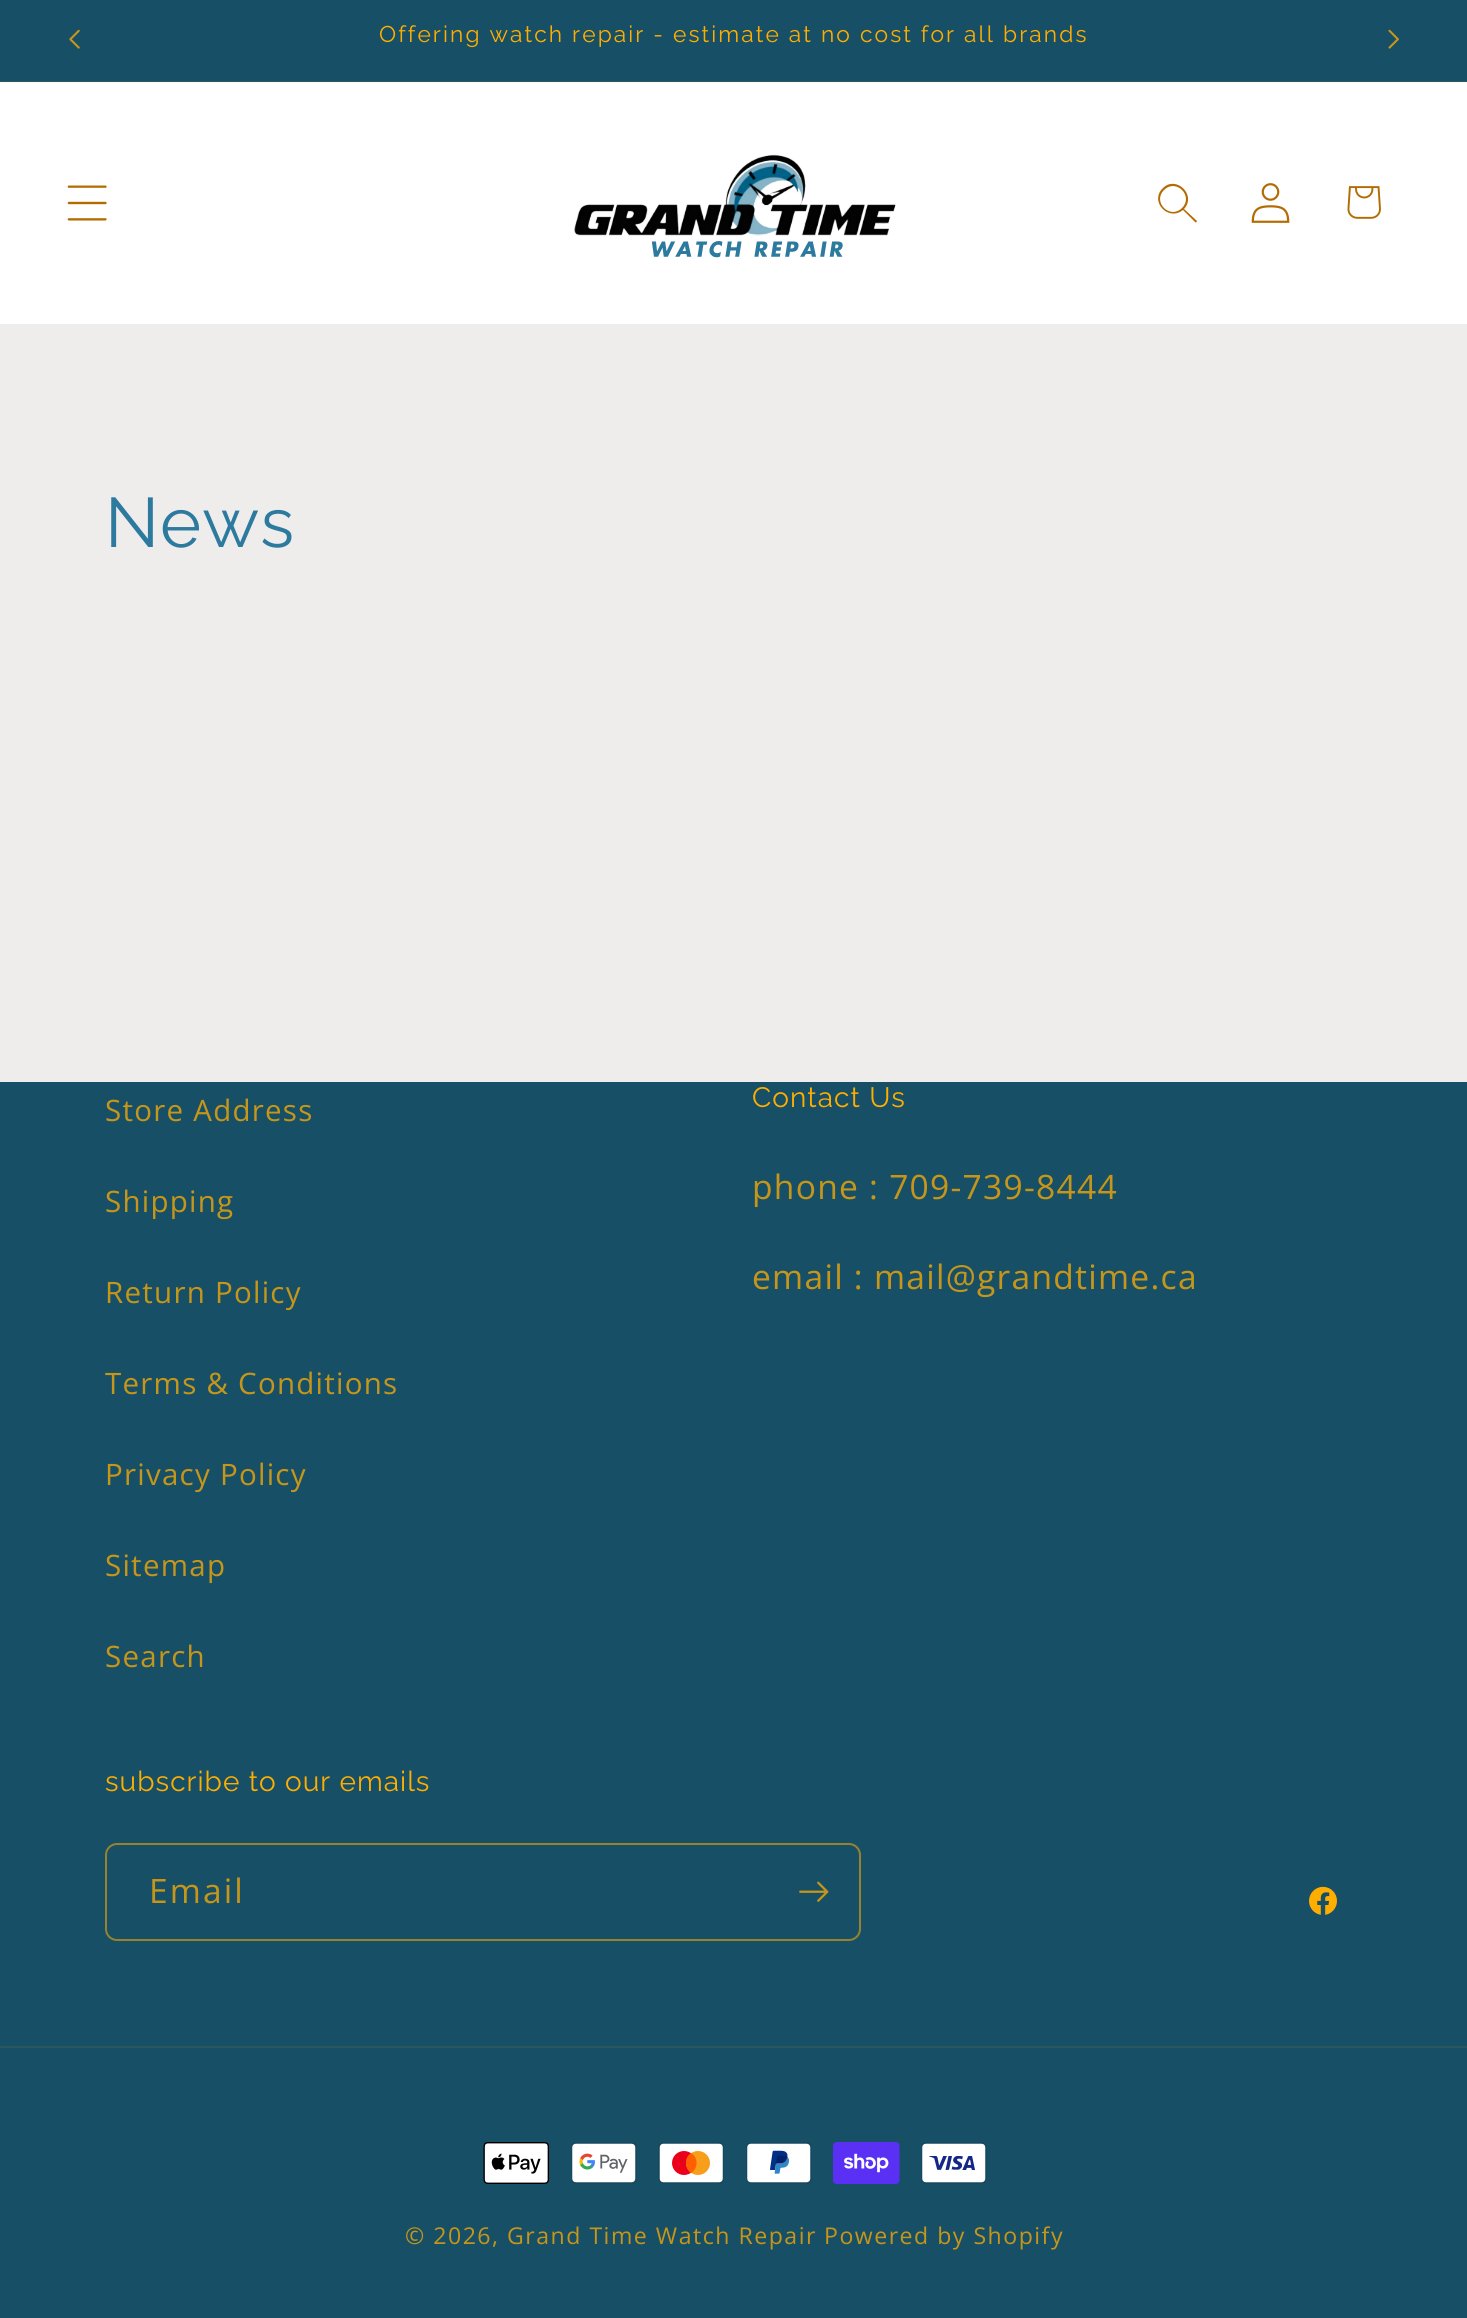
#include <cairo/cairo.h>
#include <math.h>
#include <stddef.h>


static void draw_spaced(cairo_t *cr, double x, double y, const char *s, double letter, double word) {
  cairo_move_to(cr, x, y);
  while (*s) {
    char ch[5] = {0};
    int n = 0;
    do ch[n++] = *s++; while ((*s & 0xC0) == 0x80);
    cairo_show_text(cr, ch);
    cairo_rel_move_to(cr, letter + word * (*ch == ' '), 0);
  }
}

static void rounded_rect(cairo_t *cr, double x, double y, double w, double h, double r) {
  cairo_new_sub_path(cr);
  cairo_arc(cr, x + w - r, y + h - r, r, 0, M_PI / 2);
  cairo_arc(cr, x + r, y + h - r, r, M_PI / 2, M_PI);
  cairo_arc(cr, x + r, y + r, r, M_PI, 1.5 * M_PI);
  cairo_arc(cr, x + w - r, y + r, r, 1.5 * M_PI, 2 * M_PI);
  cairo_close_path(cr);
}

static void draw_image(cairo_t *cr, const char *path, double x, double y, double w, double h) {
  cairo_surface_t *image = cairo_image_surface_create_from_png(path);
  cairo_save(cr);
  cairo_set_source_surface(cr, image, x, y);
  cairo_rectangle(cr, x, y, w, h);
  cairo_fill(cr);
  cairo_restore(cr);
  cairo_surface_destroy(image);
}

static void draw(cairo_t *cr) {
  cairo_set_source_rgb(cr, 239 / 255.0, 236 / 255.0, 236 / 255.0);
  cairo_paint(cr);
  cairo_set_source_rgb(cr, 23 / 255.0, 79 / 255.0, 102 / 255.0);
  cairo_rectangle(cr, 0, 0, 1467, 81);
  cairo_fill(cr);
  cairo_set_source_rgb(cr, 42 / 255.0, 87 / 255.0, 94 / 255.0);
  cairo_rectangle(cr, 0, 81, 1467, 1);
  cairo_fill(cr);
  draw_image(cr, "images/1.png", 69, 29, 11, 20);
  draw_image(cr, "images/2.png", 1388, 29, 11, 20);
  cairo_set_source_rgb(cr, 1, 1, 1);
  cairo_rectangle(cr, 0, 83, 1467, 241);
  cairo_fill(cr);
  cairo_set_source_rgb(cr, 1, 249 / 255.0, 235 / 255.0);
  cairo_rectangle(cr, 0, 82, 1467, 1);
  cairo_fill(cr);
  draw_image(cr, "images/3.png", 67, 185, 40, 36);
  draw_image(cr, "images/4.png", 574, 154, 322, 104);
  cairo_set_source_rgb(cr, 179 / 255.0, 108 / 255.0, 2 / 255.0);
  cairo_set_fill_rule(cr, CAIRO_FILL_RULE_EVEN_ODD);
  cairo_new_path(cr);
  cairo_move_to(cr, 1182, 208);
  cairo_curve_to(cr, 1170, 220, 1152, 202, 1164, 190);
  cairo_curve_to(cr, 1176, 178, 1194, 196, 1182, 208);
  cairo_move_to(cr, 1183, 210);
  cairo_curve_to(cr, 1168, 222, 1149, 201, 1163, 188);
  cairo_curve_to(cr, 1176, 175, 1197, 195, 1184, 209);
  cairo_line_to(cr, 1197, 221);
  cairo_curve_to(cr, 1197, 222, 1195, 223, 1195, 222);
  cairo_close_path(cr);
  cairo_fill(cr);
  draw_image(cr, "images/5.png", 1251, 183, 39, 40);
  draw_image(cr, "images/6.png", 1347, 186, 34, 33);
  cairo_set_source_rgb(cr, 23 / 255.0, 79 / 255.0, 102 / 255.0);
  cairo_rectangle(cr, 0, 1082, 1467, 1236);
  cairo_fill(cr);
  rounded_rect(cr, 106, 1844, 754, 96, 11);
  cairo_set_source_rgb(cr, 151 / 255.0, 131 / 255.0, 46 / 255.0);
  cairo_stroke(cr);
  draw_image(cr, "images/7.png", 799, 1881, 30, 21);
  draw_image(cr, "images/8.png", 1309, 1886, 28, 29);
  cairo_set_source_rgb(cr, 42 / 255.0, 87 / 255.0, 94 / 255.0);
  cairo_rectangle(cr, 0, 2046, 1467, 2);
  cairo_fill(cr);
  draw_image(cr, "images/9.png", 483, 2142, 67, 42);
  draw_image(cr, "images/10.png", 571, 2142, 66, 42);
  draw_image(cr, "images/11.png", 658, 2142, 66, 42);
  draw_image(cr, "images/12.png", 746, 2142, 66, 42);
  draw_image(cr, "images/13.png", 833, 2142, 67, 42);
  draw_image(cr, "images/14.png", 921, 2142, 66, 42);
  cairo_select_font_face(cr, "Raleway", CAIRO_FONT_SLANT_NORMAL, CAIRO_FONT_WEIGHT_NORMAL);
  cairo_set_font_size(cr, 22.75);
  cairo_set_source_rgb(cr, 1, 174 / 255.0, 0);
  draw_spaced(cr, 379, 42, "Offering watch repair - estimate at no cost for all brands", 2.1, 0);
  cairo_set_font_size(cr, 70);
  cairo_set_source_rgb(cr, 45 / 255.0, 122 / 255.0, 159 / 255.0);
  draw_spaced(cr, 105, 547, "News", 1.05, 0);
  cairo_select_font_face(cr, "Open Sans", CAIRO_FONT_SLANT_NORMAL, CAIRO_FONT_WEIGHT_NORMAL);
  cairo_set_font_size(cr, 29.5);
  cairo_set_source_rgb(cr, 197 / 255.0, 150 / 255.0, 26 / 255.0);
  draw_spaced(cr, 105, 1121, "Store Address", 1.25, 0);
  draw_spaced(cr, 105, 1212, "Shipping", 1.25, 0);
  draw_spaced(cr, 105, 1303, "Return Policy", 1.25, 0);
  draw_spaced(cr, 105, 1394, "Terms & Conditions", 1.25, 0);
  draw_spaced(cr, 105, 1485, "Privacy Policy", 1.25, 0);
  draw_spaced(cr, 105, 1576, "Sitemap", 1.25, 0);
  draw_spaced(cr, 105, 1667, "Search", 1.25, 0);
  cairo_select_font_face(cr, "Raleway", CAIRO_FONT_SLANT_NORMAL, CAIRO_FONT_WEIGHT_NORMAL);
  cairo_set_font_size(cr, 28);
  cairo_set_source_rgb(cr, 1, 174 / 255.0, 0);
  draw_spaced(cr, 752, 1107, "Contact Us", 1.05, 0);
  cairo_select_font_face(cr, "Open Sans", CAIRO_FONT_SLANT_NORMAL, CAIRO_FONT_WEIGHT_NORMAL);
  cairo_set_font_size(cr, 33.6);
  cairo_set_source_rgb(cr, 197 / 255.0, 150 / 255.0, 26 / 255.0);
  draw_spaced(cr, 752, 1199, "phone : 709-739-8444", 1.25, 0);
  draw_spaced(cr, 752, 1289, "email : mail@grandtime.ca", 1.25, 0);
  cairo_select_font_face(cr, "Raleway", CAIRO_FONT_SLANT_NORMAL, CAIRO_FONT_WEIGHT_NORMAL);
  cairo_set_font_size(cr, 28);
  cairo_set_source_rgb(cr, 1, 174 / 255.0, 0);
  draw_spaced(cr, 105, 1791, "subscribe to our emails", 1.05, 0);
  cairo_select_font_face(cr, "Open Sans", CAIRO_FONT_SLANT_NORMAL, CAIRO_FONT_WEIGHT_NORMAL);
  cairo_set_font_size(cr, 33.6);
  cairo_set_source_rgb(cr, 197 / 255.0, 150 / 255.0, 26 / 255.0);
  draw_spaced(cr, 149, 1903, "Email", 2.1, 0);
  cairo_set_font_size(cr, 23.1);
  draw_spaced(cr, 405, 2244, "© 2026, Grand Time Watch Repair", 1.5, 0);
  draw_spaced(cr, 824, 2244, "Powered by Shopify", 1.5, 0);
}

int main(void) {
  cairo_surface_t *surface = cairo_image_surface_create(CAIRO_FORMAT_RGB24, 1467, 2318);
  cairo_t *cr = cairo_create(surface);
  cairo_font_options_t *options = cairo_font_options_create();
  cairo_font_options_set_hint_metrics(options, CAIRO_HINT_METRICS_OFF);
  cairo_font_options_set_hint_style(options, CAIRO_HINT_STYLE_NONE);
  cairo_set_font_options(cr, options);
  cairo_set_miter_limit(cr, 4);
  draw(cr);
  cairo_surface_write_to_png(surface, "out.png");
  cairo_font_options_destroy(options);
  cairo_destroy(cr);
  cairo_surface_destroy(surface);
  return 0;
}
